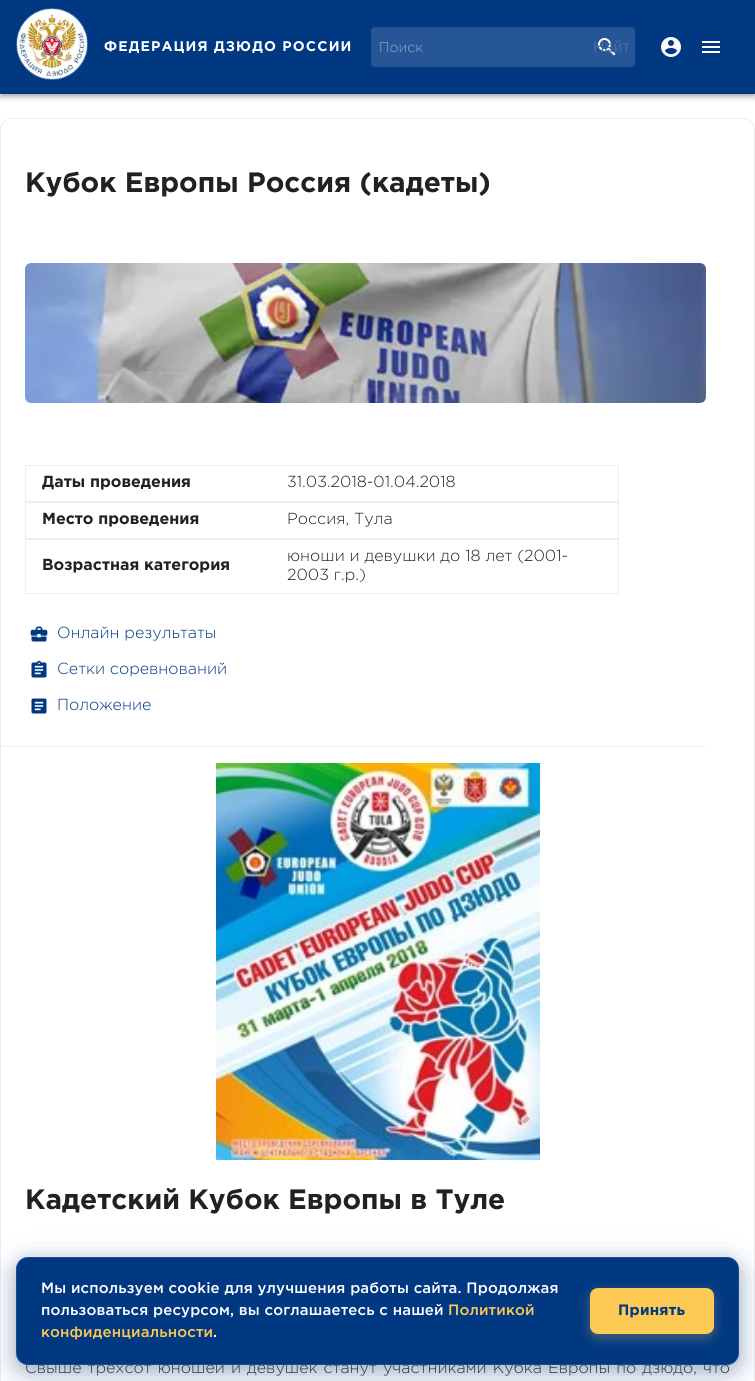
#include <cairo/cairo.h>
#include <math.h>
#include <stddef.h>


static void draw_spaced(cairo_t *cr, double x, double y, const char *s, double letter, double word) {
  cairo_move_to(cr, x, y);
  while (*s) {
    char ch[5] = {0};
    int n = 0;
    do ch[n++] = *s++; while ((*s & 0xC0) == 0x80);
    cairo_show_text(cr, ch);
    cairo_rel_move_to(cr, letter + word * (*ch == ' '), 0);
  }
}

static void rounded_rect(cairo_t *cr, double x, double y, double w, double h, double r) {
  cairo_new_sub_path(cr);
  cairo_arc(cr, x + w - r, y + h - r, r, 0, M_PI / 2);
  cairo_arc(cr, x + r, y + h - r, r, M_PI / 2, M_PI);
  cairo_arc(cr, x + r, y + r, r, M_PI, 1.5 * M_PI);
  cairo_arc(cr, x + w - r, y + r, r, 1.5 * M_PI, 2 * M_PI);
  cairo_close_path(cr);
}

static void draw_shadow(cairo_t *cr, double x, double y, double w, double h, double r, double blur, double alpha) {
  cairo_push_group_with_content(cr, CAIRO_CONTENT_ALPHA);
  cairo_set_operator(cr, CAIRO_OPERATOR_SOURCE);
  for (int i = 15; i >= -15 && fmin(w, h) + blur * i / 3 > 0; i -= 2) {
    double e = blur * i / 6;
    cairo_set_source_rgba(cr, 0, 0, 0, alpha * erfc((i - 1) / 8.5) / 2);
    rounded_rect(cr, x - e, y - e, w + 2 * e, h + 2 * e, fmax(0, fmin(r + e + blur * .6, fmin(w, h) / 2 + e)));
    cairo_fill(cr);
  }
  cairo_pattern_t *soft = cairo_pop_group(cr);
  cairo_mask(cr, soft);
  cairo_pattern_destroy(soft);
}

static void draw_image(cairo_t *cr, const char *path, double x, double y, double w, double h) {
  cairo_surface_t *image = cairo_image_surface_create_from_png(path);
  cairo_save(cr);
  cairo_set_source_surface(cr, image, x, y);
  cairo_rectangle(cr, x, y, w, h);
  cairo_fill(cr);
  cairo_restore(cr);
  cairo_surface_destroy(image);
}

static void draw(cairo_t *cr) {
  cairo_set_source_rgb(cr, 1, 1, 1);
  cairo_paint(cr);
  cairo_set_source_rgb(cr, 0, 0, 0);
  draw_shadow(cr, 0, 1, 755, 94, 0, 5, 0.12);
  draw_shadow(cr, 0, 4, 755, 94, 0, 2.5, 0.14);
  draw_shadow(cr, 1, 3, 753, 92, 0, 2, 0.2);
  cairo_set_source_rgb(cr, 0, 56 / 255.0, 130 / 255.0);
  cairo_rectangle(cr, 0, 0, 755, 94);
  cairo_fill(cr);
  draw_image(cr, "images/1.png", 16, 8, 72, 72);
  cairo_set_source_rgb(cr, 38 / 255.0, 86 / 255.0, 149 / 255.0);
  rounded_rect(cr, 371, 27, 264, 40, 4);
  cairo_fill(cr);
  draw_image(cr, "images/2.png", 598, 38, 18, 18);
  draw_image(cr, "images/3.png", 661, 37, 20, 20);
  draw_image(cr, "images/4.png", 702, 41, 18, 12);
  rounded_rect(cr, 0.5, 118.5, 754, 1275, 11.5);
  cairo_set_source_rgb(cr, 238 / 255.0, 238 / 255.0, 238 / 255.0);
  cairo_set_line_width(cr, 1);
  cairo_stroke(cr);
  cairo_rectangle(cr, 1, 746, 705, 1);
  cairo_fill(cr);
  draw_image(cr, "images/5.png", 25, 263, 681, 140);
  cairo_rectangle(cr, 25.5, 465.5, 593, 36);
  cairo_stroke(cr);
  cairo_rectangle(cr, 25.5, 502.5, 593, 36);
  cairo_stroke(cr);
  cairo_rectangle(cr, 25.5, 539.5, 593, 54);
  cairo_stroke(cr);
  draw_image(cr, "images/6.png", 30, 626, 18, 16);
  draw_image(cr, "images/7.png", 31, 660, 16, 18);
  draw_image(cr, "images/8.png", 31, 698, 16, 16);
  draw_image(cr, "images/9.png", 216, 763, 324, 397);
  cairo_select_font_face(cr, "Gotham", CAIRO_FONT_SLANT_NORMAL, CAIRO_FONT_WEIGHT_BOLD);
  cairo_set_font_size(cr, 14);
  cairo_set_source_rgb(cr, 1, 1, 1);
  draw_spaced(cr, 104, 51, "ФЕДЕРАЦИЯ ДЗЮДО РОССИИ", 1.1, 0);
  cairo_select_font_face(cr, "Gotham Light", CAIRO_FONT_SLANT_NORMAL, CAIRO_FONT_WEIGHT_NORMAL);
  cairo_set_source_rgb(cr, 147 / 255.0, 171 / 255.0, 202 / 255.0);
  cairo_move_to(cr, 379, 52);
  cairo_show_text(cr, "Поиск");
  cairo_select_font_face(cr, "Liberation Sans", CAIRO_FONT_SLANT_NORMAL, CAIRO_FONT_WEIGHT_NORMAL);
  cairo_set_font_size(cr, 16);
  cairo_set_source_rgb(cr, 67 / 255.0, 108 / 255.0, 163 / 255.0);
  cairo_move_to(cr, 593, 52);
  cairo_show_text(cr, "Найт");
  cairo_select_font_face(cr, "Gotham", CAIRO_FONT_SLANT_NORMAL, CAIRO_FONT_WEIGHT_BOLD);
  cairo_set_font_size(cr, 28);
  cairo_set_source_rgb(cr, 33 / 255.0, 33 / 255.0, 33 / 255.0);
  cairo_move_to(cr, 25, 192);
  cairo_show_text(cr, "Кубок Европы Россия (кадеты)");
  cairo_set_font_size(cr, 16);
  cairo_move_to(cr, 42, 487);
  cairo_show_text(cr, "Даты проведения");
  cairo_select_font_face(cr, "Gotham Light", CAIRO_FONT_SLANT_NORMAL, CAIRO_FONT_WEIGHT_NORMAL);
  cairo_move_to(cr, 287, 487);
  cairo_show_text(cr, "31.03.2018-01.04.2018");
  cairo_select_font_face(cr, "Gotham", CAIRO_FONT_SLANT_NORMAL, CAIRO_FONT_WEIGHT_BOLD);
  cairo_move_to(cr, 42, 524);
  cairo_show_text(cr, "Место проведения");
  cairo_select_font_face(cr, "Gotham Light", CAIRO_FONT_SLANT_NORMAL, CAIRO_FONT_WEIGHT_NORMAL);
  cairo_move_to(cr, 287, 524);
  cairo_show_text(cr, "Россия, Тула");
  cairo_select_font_face(cr, "Gotham", CAIRO_FONT_SLANT_NORMAL, CAIRO_FONT_WEIGHT_BOLD);
  cairo_move_to(cr, 42, 570);
  cairo_show_text(cr, "Возрастная категория");
  cairo_select_font_face(cr, "Gotham Light", CAIRO_FONT_SLANT_NORMAL, CAIRO_FONT_WEIGHT_NORMAL);
  cairo_move_to(cr, 287, 561);
  cairo_show_text(cr, "юноши и девушки до 18 лет (2001-");
  cairo_move_to(cr, 287, 580);
  cairo_show_text(cr, "2003 г.р.)");
  cairo_set_source_rgb(cr, 0, 56 / 255.0, 130 / 255.0);
  cairo_move_to(cr, 57, 638);
  cairo_show_text(cr, "Онлайн результаты");
  cairo_move_to(cr, 57, 674);
  cairo_show_text(cr, "Сетки соревнований");
  cairo_move_to(cr, 57, 710);
  cairo_show_text(cr, "Положение");
  cairo_select_font_face(cr, "Gotham", CAIRO_FONT_SLANT_NORMAL, CAIRO_FONT_WEIGHT_BOLD);
  cairo_set_font_size(cr, 28);
  cairo_set_source_rgb(cr, 33 / 255.0, 33 / 255.0, 33 / 255.0);
  cairo_move_to(cr, 25, 1209);
  cairo_show_text(cr, "Кадетский Кубок Европы в Туле");
  cairo_select_font_face(cr, "Gotham Light", CAIRO_FONT_SLANT_NORMAL, CAIRO_FONT_WEIGHT_NORMAL);
  cairo_set_font_size(cr, 16);
  cairo_set_source_rgb(cr, 47 / 255.0, 52 / 255.0, 68 / 255.0);
  draw_spaced(cr, 25, 1373, "Свыше трехсот юношей и девушек станут участниками Кубка Европы по дзюдо, что", 0, 1.25);
  rounded_rect(cr, 15.5, 1256.5, 724, 109, 12.5);
  cairo_set_source_rgba(cr, 1, 1, 1, 0.1);
  cairo_stroke(cr);
  cairo_set_source_rgb(cr, 0, 0, 0);
  draw_shadow(cr, 16, 1261, 723, 108, 12, 8, 0.15);
  cairo_set_source_rgb(cr, 0, 56 / 255.0, 130 / 255.0);
  draw_shadow(cr, 16, 1265, 723, 108, 12, 16, 0.3);
  cairo_set_source_rgb(cr, 0, 56 / 255.0, 130 / 255.0);
  rounded_rect(cr, 16, 1257, 723, 108, 12);
  cairo_fill(cr);
  rounded_rect(cr, 16.5, 1257.5, 722, 107, 11.5);
  cairo_set_source_rgba(cr, 1, 1, 1, 0.1);
  cairo_stroke(cr);
  cairo_select_font_face(cr, "Gotham Medium", CAIRO_FONT_SLANT_NORMAL, CAIRO_FONT_WEIGHT_NORMAL);
  cairo_set_font_size(cr, 15);
  cairo_set_source_rgb(cr, 1, 1, 1);
  draw_spaced(cr, 41, 1293, "Мы используем cookie для улучшения работы сайта. Продолжая", 0.15, 0);
  draw_spaced(cr, 41, 1315, "пользоваться ресурсом, вы соглашаетесь с нашей", 0.15, 0);
  cairo_set_source_rgb(cr, 252 / 255.0, 201 / 255.0, 84 / 255.0);
  draw_spaced(cr, 448, 1315, "Политикой", 0.15, 0);
  draw_spaced(cr, 41, 1337, "конфиденциальности", 0.15, 0);
  cairo_set_source_rgb(cr, 1, 1, 1);
  draw_spaced(cr, 213, 1337, ".", 0.15, 0);
  cairo_set_source_rgb(cr, 252 / 255.0, 201 / 255.0, 84 / 255.0);
  draw_shadow(cr, 590, 1292, 124, 46, 8, 6, 0.3);
  cairo_set_source_rgb(cr, 252 / 255.0, 201 / 255.0, 84 / 255.0);
  rounded_rect(cr, 590, 1288, 124, 46, 8);
  cairo_fill(cr);
  cairo_select_font_face(cr, "Gotham", CAIRO_FONT_SLANT_NORMAL, CAIRO_FONT_WEIGHT_BOLD);
  cairo_set_source_rgb(cr, 0, 56 / 255.0, 130 / 255.0);
  draw_spaced(cr, 618, 1315, "Принять", 0.25, 0);
}

int main(void) {
  cairo_surface_t *surface = cairo_image_surface_create(CAIRO_FORMAT_RGB24, 755, 1381);
  cairo_t *cr = cairo_create(surface);
  cairo_font_options_t *options = cairo_font_options_create();
  cairo_font_options_set_hint_metrics(options, CAIRO_HINT_METRICS_OFF);
  cairo_font_options_set_hint_style(options, CAIRO_HINT_STYLE_NONE);
  cairo_set_font_options(cr, options);
  cairo_set_miter_limit(cr, 4);
  draw(cr);
  cairo_surface_write_to_png(surface, "out.png");
  cairo_font_options_destroy(options);
  cairo_destroy(cr);
  cairo_surface_destroy(surface);
  return 0;
}
